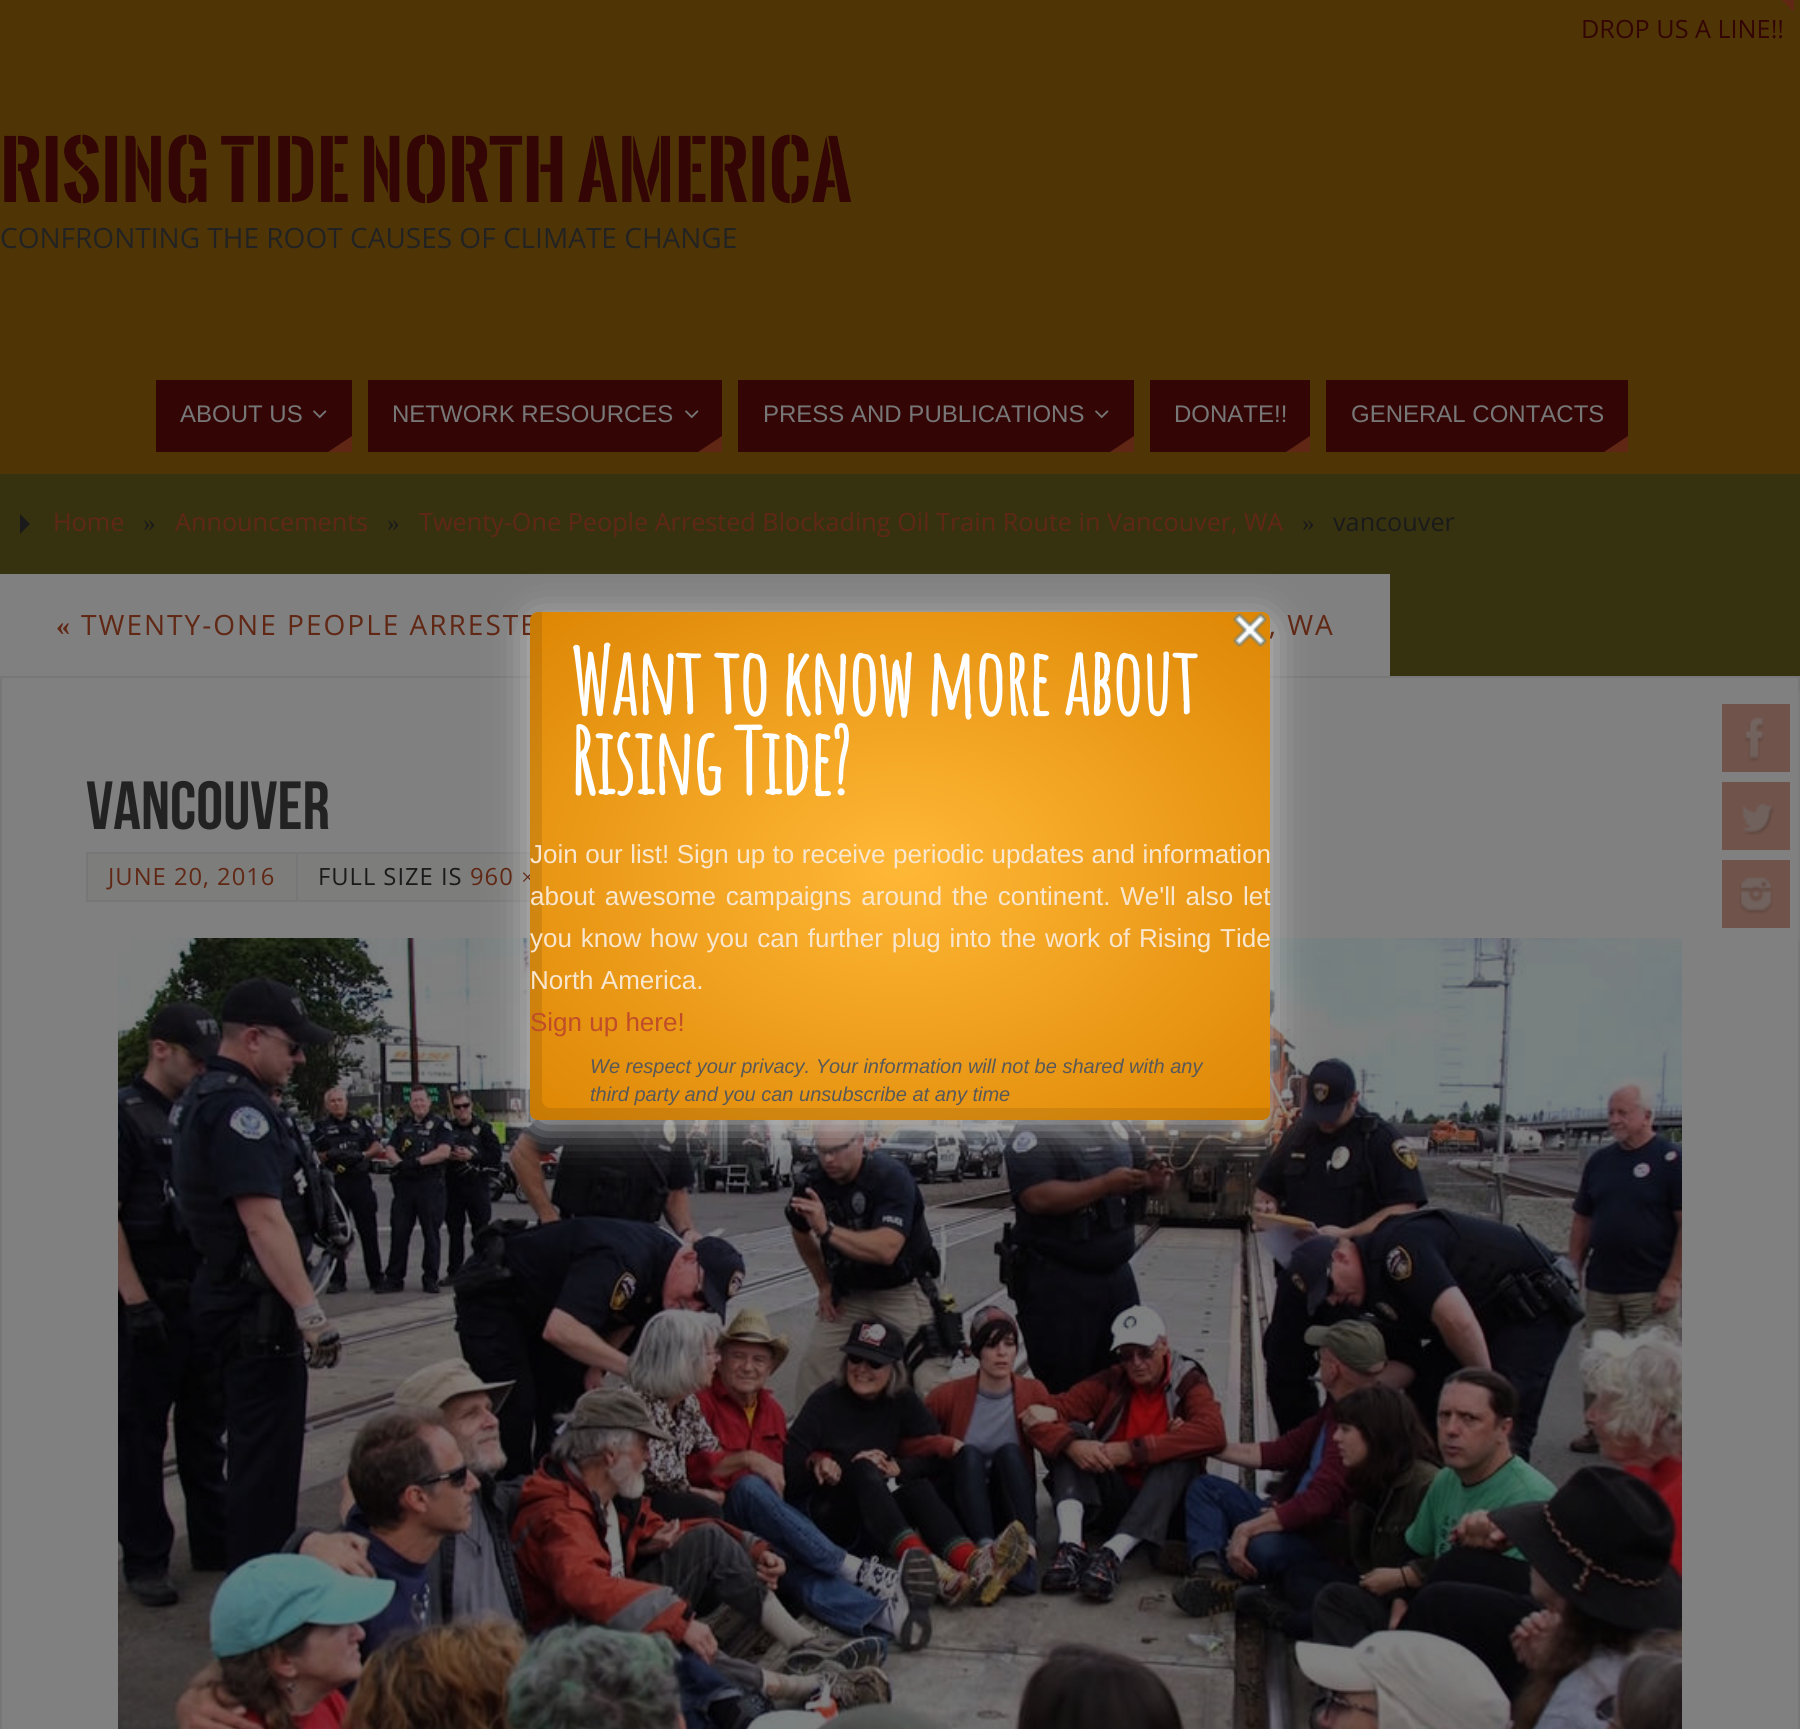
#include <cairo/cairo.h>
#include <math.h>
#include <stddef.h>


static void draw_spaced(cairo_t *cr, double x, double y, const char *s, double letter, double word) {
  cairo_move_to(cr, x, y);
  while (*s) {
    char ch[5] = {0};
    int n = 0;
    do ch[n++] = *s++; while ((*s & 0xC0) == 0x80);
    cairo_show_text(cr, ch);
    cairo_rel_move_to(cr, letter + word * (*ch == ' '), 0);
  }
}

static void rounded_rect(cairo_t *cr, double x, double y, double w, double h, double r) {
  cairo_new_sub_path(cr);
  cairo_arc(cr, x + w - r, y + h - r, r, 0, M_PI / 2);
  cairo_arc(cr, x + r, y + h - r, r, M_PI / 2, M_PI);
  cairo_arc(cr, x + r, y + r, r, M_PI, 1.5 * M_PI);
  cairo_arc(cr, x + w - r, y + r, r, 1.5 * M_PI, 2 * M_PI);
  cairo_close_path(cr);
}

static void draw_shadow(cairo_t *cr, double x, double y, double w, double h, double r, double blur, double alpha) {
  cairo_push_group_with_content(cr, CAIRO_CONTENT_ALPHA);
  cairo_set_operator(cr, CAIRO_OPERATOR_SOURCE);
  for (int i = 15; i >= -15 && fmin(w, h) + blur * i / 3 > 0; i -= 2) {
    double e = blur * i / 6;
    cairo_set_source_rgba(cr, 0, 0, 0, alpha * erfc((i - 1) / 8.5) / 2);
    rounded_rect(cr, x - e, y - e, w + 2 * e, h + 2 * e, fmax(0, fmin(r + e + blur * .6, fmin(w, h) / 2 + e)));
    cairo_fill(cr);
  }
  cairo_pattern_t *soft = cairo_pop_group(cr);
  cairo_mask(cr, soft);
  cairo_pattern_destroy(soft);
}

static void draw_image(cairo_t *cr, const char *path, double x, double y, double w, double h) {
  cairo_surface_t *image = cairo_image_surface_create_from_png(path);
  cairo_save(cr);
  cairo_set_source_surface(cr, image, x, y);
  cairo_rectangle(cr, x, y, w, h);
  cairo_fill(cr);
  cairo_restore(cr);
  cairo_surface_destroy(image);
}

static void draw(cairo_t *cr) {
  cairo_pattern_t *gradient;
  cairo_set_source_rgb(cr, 54 / 255.0, 50 / 255.0, 16 / 255.0);
  cairo_paint(cr);
  cairo_set_source_rgb(cr, 79 / 255.0, 53 / 255.0, 6 / 255.0);
  cairo_rectangle(cr, 0, 0, 1800, 474);
  cairo_fill(cr);
  cairo_set_source_rgb(cr, 96 / 255.0, 39 / 255.0, 20 / 255.0);
  cairo_new_path(cr);
  cairo_move_to(cr, 1782, 0);
  cairo_line_to(cr, 1794, 0);
  cairo_line_to(cr, 1794, 12);
  cairo_close_path(cr);
  cairo_fill(cr);
  cairo_set_source_rgb(cr, 51 / 255.0, 5 / 255.0, 5 / 255.0);
  cairo_rectangle(cr, 156, 380, 196, 72);
  cairo_fill(cr);
  draw_image(cr, "images/1.png", 313, 410, 14, 9);
  cairo_set_source_rgb(cr, 96 / 255.0, 39 / 255.0, 20 / 255.0);
  cairo_new_path(cr);
  cairo_move_to(cr, 352, 452);
  cairo_line_to(cr, 328, 452);
  cairo_line_to(cr, 352, 436);
  cairo_close_path(cr);
  cairo_fill(cr);
  cairo_set_source_rgb(cr, 51 / 255.0, 5 / 255.0, 5 / 255.0);
  cairo_rectangle(cr, 368, 380, 354, 72);
  cairo_fill(cr);
  draw_image(cr, "images/1.png", 685, 410, 14, 9);
  cairo_set_source_rgb(cr, 96 / 255.0, 39 / 255.0, 20 / 255.0);
  cairo_new_path(cr);
  cairo_move_to(cr, 722, 452);
  cairo_line_to(cr, 698, 452);
  cairo_line_to(cr, 722, 436);
  cairo_close_path(cr);
  cairo_fill(cr);
  cairo_set_source_rgb(cr, 51 / 255.0, 5 / 255.0, 5 / 255.0);
  cairo_rectangle(cr, 738, 380, 396, 72);
  cairo_fill(cr);
  draw_image(cr, "images/1.png", 1095, 410, 14, 9);
  cairo_set_source_rgb(cr, 96 / 255.0, 39 / 255.0, 20 / 255.0);
  cairo_new_path(cr);
  cairo_move_to(cr, 1134, 452);
  cairo_line_to(cr, 1110, 452);
  cairo_line_to(cr, 1134, 436);
  cairo_close_path(cr);
  cairo_fill(cr);
  cairo_set_source_rgb(cr, 51 / 255.0, 5 / 255.0, 5 / 255.0);
  cairo_rectangle(cr, 1150, 380, 160, 72);
  cairo_fill(cr);
  cairo_set_source_rgb(cr, 96 / 255.0, 39 / 255.0, 20 / 255.0);
  cairo_new_path(cr);
  cairo_move_to(cr, 1310, 452);
  cairo_line_to(cr, 1286, 452);
  cairo_line_to(cr, 1310, 436);
  cairo_close_path(cr);
  cairo_fill(cr);
  cairo_set_source_rgb(cr, 51 / 255.0, 5 / 255.0, 5 / 255.0);
  cairo_rectangle(cr, 1326, 380, 302, 72);
  cairo_fill(cr);
  cairo_set_source_rgb(cr, 96 / 255.0, 39 / 255.0, 20 / 255.0);
  cairo_new_path(cr);
  cairo_move_to(cr, 1628, 452);
  cairo_line_to(cr, 1604, 452);
  cairo_line_to(cr, 1628, 436);
  cairo_close_path(cr);
  cairo_fill(cr);
  cairo_set_source_rgb(cr, 26 / 255.0, 26 / 255.0, 26 / 255.0);
  cairo_new_path(cr);
  cairo_move_to(cr, 20, 534);
  cairo_line_to(cr, 20, 514);
  cairo_line_to(cr, 30, 524);
  cairo_close_path(cr);
  cairo_fill(cr);
  cairo_set_source_rgb(cr, 128 / 255.0, 128 / 255.0, 128 / 255.0);
  cairo_rectangle(cr, 0, 574, 1390, 102);
  cairo_fill(cr);
  cairo_rectangle(cr, 1, 677, 1798, 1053);
  cairo_fill_preserve(cr);
  cairo_set_source_rgb(cr, 119 / 255.0, 119 / 255.0, 119 / 255.0);
  cairo_stroke(cr);
  cairo_set_source_rgb(cr, 125 / 255.0, 125 / 255.0, 124 / 255.0);
  cairo_rectangle(cr, 87, 853, 210, 48);
  cairo_fill_preserve(cr);
  cairo_set_source_rgb(cr, 119 / 255.0, 119 / 255.0, 119 / 255.0);
  cairo_stroke(cr);
  cairo_set_source_rgb(cr, 125 / 255.0, 125 / 255.0, 124 / 255.0);
  cairo_rectangle(cr, 298, 854, 232, 46);
  cairo_fill(cr);
  cairo_rectangle(cr, 297, 853, 396, 48);
  cairo_set_source_rgb(cr, 119 / 255.0, 119 / 255.0, 119 / 255.0);
  cairo_stroke(cr);
  draw_image(cr, "images/2.png", 118, 938, 1564, 791);
  cairo_set_source_rgba(cr, 128 / 255.0, 128 / 255.0, 128 / 255.0, 0.5);
  cairo_rectangle(cr, 1798, 692, 2, 248);
  cairo_fill(cr);
  cairo_set_source_rgb(cr, 112 / 255.0, 83 / 255.0, 74 / 255.0);
  cairo_rectangle(cr, 1722, 704, 68, 68);
  cairo_fill(cr);
  draw_image(cr, "images/3.png", 1744, 717, 20, 45);
  cairo_rectangle(cr, 1722, 782, 68, 68);
  cairo_fill(cr);
  draw_image(cr, "images/4.png", 1742, 803, 33, 32);
  cairo_rectangle(cr, 1722, 860, 68, 68);
  cairo_fill(cr);
  draw_image(cr, "images/5.png", 1739, 877, 34, 37);
  cairo_set_source_rgb(cr, 192 / 255.0, 192 / 255.0, 192 / 255.0);
  draw_shadow(cr, 530, 620, 740, 508, 8, 20, 1);
  cairo_select_font_face(cr, "Open Sans", CAIRO_FONT_SLANT_NORMAL, CAIRO_FONT_WEIGHT_NORMAL);
  cairo_set_font_size(cr, 25.2);
  cairo_set_source_rgb(cr, 51 / 255.0, 5 / 255.0, 5 / 255.0);
  cairo_move_to(cr, 1581, 38);
  cairo_show_text(cr, "DROP US A LINE!!");
  cairo_select_font_face(cr, "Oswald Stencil", CAIRO_FONT_SLANT_NORMAL, CAIRO_FONT_WEIGHT_BOLD);
  cairo_set_font_size(cr, 76);
  cairo_move_to(cr, 0, 202);
  cairo_show_text(cr, "RISING TIDE NORTH AMERICA");
  cairo_select_font_face(cr, "Open Sans", CAIRO_FONT_SLANT_NORMAL, CAIRO_FONT_WEIGHT_NORMAL);
  cairo_set_font_size(cr, 28);
  cairo_set_source_rgb(cr, 34 / 255.0, 34 / 255.0, 34 / 255.0);
  cairo_move_to(cr, 0, 248);
  cairo_show_text(cr, "CONFRONTING THE ROOT CAUSES OF CLIMATE CHANGE");
  cairo_select_font_face(cr, "Liberation Sans", CAIRO_FONT_SLANT_NORMAL, CAIRO_FONT_WEIGHT_NORMAL);
  cairo_set_font_size(cr, 24);
  cairo_set_source_rgb(cr, 119 / 255.0, 119 / 255.0, 119 / 255.0);
  cairo_move_to(cr, 180, 422);
  cairo_show_text(cr, "ABOUT US");
  cairo_move_to(cr, 392, 422);
  cairo_show_text(cr, "NETWORK RESOURCES");
  cairo_move_to(cr, 763, 422);
  cairo_show_text(cr, "PRESS AND PUBLICATIONS");
  cairo_move_to(cr, 1174, 422);
  cairo_show_text(cr, "DONATE!!");
  cairo_move_to(cr, 1351, 422);
  cairo_show_text(cr, "GENERAL CONTACTS");
  cairo_select_font_face(cr, "Open Sans", CAIRO_FONT_SLANT_NORMAL, CAIRO_FONT_WEIGHT_NORMAL);
  cairo_set_font_size(cr, 25.2);
  cairo_set_source_rgb(cr, 96 / 255.0, 39 / 255.0, 20 / 255.0);
  cairo_move_to(cr, 53, 531);
  cairo_show_text(cr, "Home");
  cairo_select_font_face(cr, "Liberation Serif", CAIRO_FONT_SLANT_NORMAL, CAIRO_FONT_WEIGHT_NORMAL);
  cairo_set_source_rgb(cr, 26 / 255.0, 26 / 255.0, 26 / 255.0);
  cairo_move_to(cr, 143, 531);
  cairo_show_text(cr, "»");
  cairo_select_font_face(cr, "Open Sans", CAIRO_FONT_SLANT_NORMAL, CAIRO_FONT_WEIGHT_NORMAL);
  cairo_set_source_rgb(cr, 96 / 255.0, 39 / 255.0, 20 / 255.0);
  cairo_move_to(cr, 175, 531);
  cairo_show_text(cr, "Announcements");
  cairo_select_font_face(cr, "Liberation Serif", CAIRO_FONT_SLANT_NORMAL, CAIRO_FONT_WEIGHT_NORMAL);
  cairo_set_source_rgb(cr, 26 / 255.0, 26 / 255.0, 26 / 255.0);
  cairo_move_to(cr, 387, 531);
  cairo_show_text(cr, "»");
  cairo_select_font_face(cr, "Open Sans", CAIRO_FONT_SLANT_NORMAL, CAIRO_FONT_WEIGHT_NORMAL);
  cairo_set_source_rgb(cr, 96 / 255.0, 39 / 255.0, 20 / 255.0);
  cairo_move_to(cr, 419, 531);
  cairo_show_text(cr, "Twenty-One People Arrested Blockading Oil Train Route in Vancouver, WA");
  cairo_select_font_face(cr, "Liberation Serif", CAIRO_FONT_SLANT_NORMAL, CAIRO_FONT_WEIGHT_NORMAL);
  cairo_set_source_rgb(cr, 26 / 255.0, 26 / 255.0, 26 / 255.0);
  cairo_move_to(cr, 1302, 531);
  cairo_show_text(cr, "»");
  cairo_select_font_face(cr, "Open Sans", CAIRO_FONT_SLANT_NORMAL, CAIRO_FONT_WEIGHT_NORMAL);
  cairo_move_to(cr, 1333, 531);
  cairo_show_text(cr, "vancouver");
  cairo_select_font_face(cr, "Liberation Serif", CAIRO_FONT_SLANT_NORMAL, CAIRO_FONT_WEIGHT_BOLD);
  cairo_set_font_size(cr, 28);
  cairo_set_source_rgb(cr, 96 / 255.0, 39 / 255.0, 20 / 255.0);
  draw_spaced(cr, 56, 635, "«", 2, 0);
  cairo_select_font_face(cr, "Open Sans", CAIRO_FONT_SLANT_NORMAL, CAIRO_FONT_WEIGHT_NORMAL);
  draw_spaced(cr, 81, 635, "TWENTY-ONE PEOPLE ARRESTE", 2, 0);
  draw_spaced(cr, 1269, 635, ", WA", 2, 0);
  cairo_select_font_face(cr, "Bebas Neue", CAIRO_FONT_SLANT_NORMAL, CAIRO_FONT_WEIGHT_NORMAL);
  cairo_set_font_size(cr, 68);
  cairo_set_source_rgb(cr, 34 / 255.0, 34 / 255.0, 34 / 255.0);
  cairo_move_to(cr, 86, 829);
  cairo_show_text(cr, "vancouver");
  cairo_select_font_face(cr, "Open Sans", CAIRO_FONT_SLANT_NORMAL, CAIRO_FONT_WEIGHT_NORMAL);
  cairo_set_font_size(cr, 23.75);
  cairo_set_source_rgb(cr, 96 / 255.0, 39 / 255.0, 20 / 255.0);
  draw_spaced(cr, 108, 885, "JUNE 20, 2016", 1, 0);
  cairo_set_source_rgb(cr, 26 / 255.0, 26 / 255.0, 26 / 255.0);
  draw_spaced(cr, 318, 885, "FULL SIZE IS", 1, 0);
  cairo_set_source_rgb(cr, 96 / 255.0, 39 / 255.0, 20 / 255.0);
  draw_spaced(cr, 470, 885, "960", 1, 0);
  cairo_select_font_face(cr, "Liberation Serif", CAIRO_FONT_SLANT_NORMAL, CAIRO_FONT_WEIGHT_NORMAL);
  draw_spaced(cr, 521, 885, "×", 1, 0);
  gradient = cairo_pattern_create_radial(0, 0, 0, 0, 0, 1);
  cairo_pattern_set_matrix(gradient, &(cairo_matrix_t){1.0 / 523, 0, 0, 1.0 / 359, -1.0 * 900 / 523, -1.0 * 866 / 359});
  cairo_pattern_add_color_stop_rgba(gradient, 0, 1, 184 / 255.0, 54 / 255.0, 1);
  cairo_pattern_add_color_stop_rgba(gradient, 1, 221 / 255.0, 134 / 255.0, 4 / 255.0, 1);
  cairo_set_source(cr, gradient);
  cairo_pattern_destroy(gradient);
  rounded_rect(cr, 530, 612, 740, 508, 8);
  cairo_fill(cr);
  cairo_set_source_rgba(cr, 0, 0, 0, 0.1);
  cairo_new_path(cr);
  cairo_move_to(cr, 538, 612);
  cairo_curve_to(cr, 534, 612, 530, 616, 530, 620);
  cairo_line_to(cr, 530, 1112);
  cairo_curve_to(cr, 530, 1116, 534, 1120, 538, 1120);
  cairo_line_to(cr, 1262, 1120);
  cairo_curve_to(cr, 1266, 1120, 1270, 1116, 1270, 1112);
  cairo_line_to(cr, 1270, 1108);
  cairo_line_to(cr, 550, 1108);
  cairo_curve_to(cr, 546, 1108, 542, 1104, 542, 1100);
  cairo_line_to(cr, 542, 612);
  cairo_close_path(cr);
  cairo_fill(cr);
  draw_image(cr, "images/6.png", 1233, 613, 34, 34);
  cairo_select_font_face(cr, "Amatic SC", CAIRO_FONT_SLANT_NORMAL, CAIRO_FONT_WEIGHT_BOLD);
  cairo_set_font_size(cr, 90);
  cairo_set_source_rgb(cr, 1, 1, 1);
  draw_spaced(cr, 570, 715, "Want to know more about", -2, 0);
  draw_spaced(cr, 570, 795, "Rising Tide?", -2, 0);
  cairo_select_font_face(cr, "Liberation Sans", CAIRO_FONT_SLANT_NORMAL, CAIRO_FONT_WEIGHT_NORMAL);
  cairo_set_font_size(cr, 26);
  cairo_set_source_rgb(cr, 249 / 255.0, 230 / 255.0, 206 / 255.0);
  draw_spaced(cr, 530, 863, "Join our list! Sign up to receive periodic updates and information", 0, 0.25);
  draw_spaced(cr, 530, 905, "about awesome campaigns around the continent. We'll also let", 0, 2.5);
  draw_spaced(cr, 530, 947, "you know how you can further plug into the work of Rising Tide", 0, 1.5);
  cairo_move_to(cr, 530, 989);
  cairo_show_text(cr, "North America.");
  cairo_set_source_rgb(cr, 191 / 255.0, 77 / 255.0, 40 / 255.0);
  cairo_move_to(cr, 530, 1031);
  cairo_show_text(cr, "Sign up here!");
  cairo_select_font_face(cr, "Liberation Sans", CAIRO_FONT_SLANT_ITALIC, CAIRO_FONT_WEIGHT_NORMAL);
  cairo_set_font_size(cr, 20);
  cairo_set_source_rgb(cr, 88 / 255.0, 88 / 255.0, 88 / 255.0);
  cairo_move_to(cr, 590, 1073);
  cairo_show_text(cr, "We respect your privacy. Your information will not be shared with any");
  cairo_move_to(cr, 590, 1101);
  cairo_show_text(cr, "third party and you can unsubscribe at any time");
}

int main(void) {
  cairo_surface_t *surface = cairo_image_surface_create(CAIRO_FORMAT_RGB24, 1800, 1729);
  cairo_t *cr = cairo_create(surface);
  cairo_font_options_t *options = cairo_font_options_create();
  cairo_font_options_set_hint_metrics(options, CAIRO_HINT_METRICS_OFF);
  cairo_font_options_set_hint_style(options, CAIRO_HINT_STYLE_NONE);
  cairo_set_font_options(cr, options);
  cairo_set_miter_limit(cr, 4);
  draw(cr);
  cairo_surface_write_to_png(surface, "out.png");
  cairo_font_options_destroy(options);
  cairo_destroy(cr);
  cairo_surface_destroy(surface);
  return 0;
}
